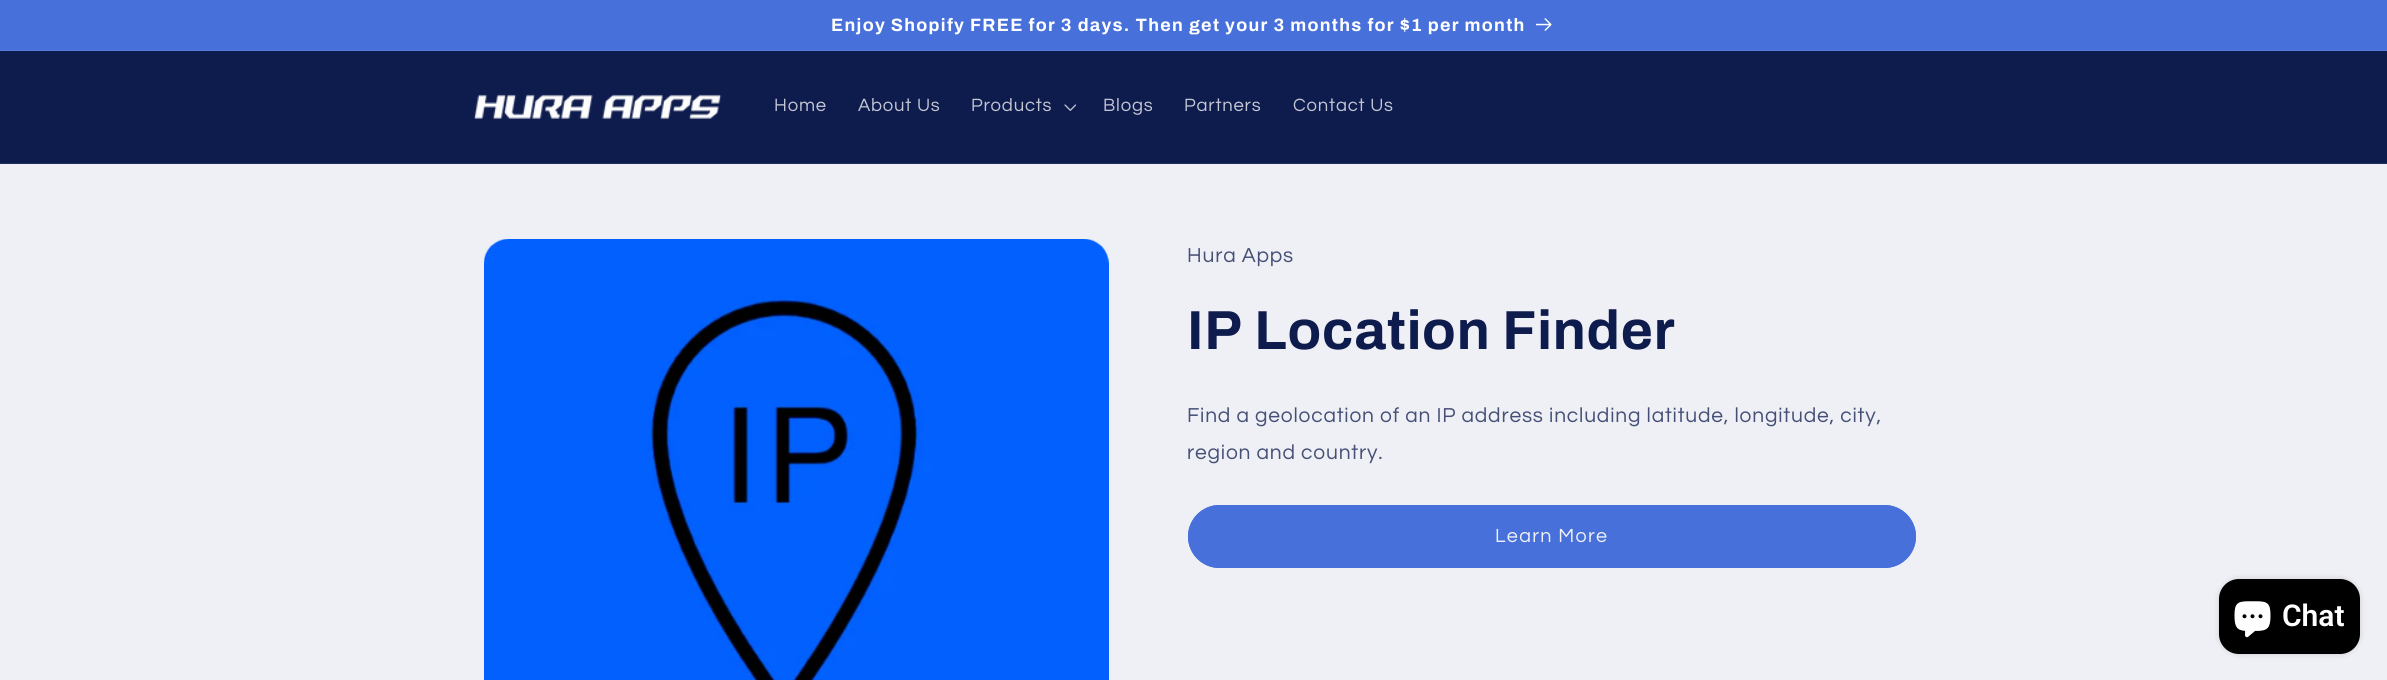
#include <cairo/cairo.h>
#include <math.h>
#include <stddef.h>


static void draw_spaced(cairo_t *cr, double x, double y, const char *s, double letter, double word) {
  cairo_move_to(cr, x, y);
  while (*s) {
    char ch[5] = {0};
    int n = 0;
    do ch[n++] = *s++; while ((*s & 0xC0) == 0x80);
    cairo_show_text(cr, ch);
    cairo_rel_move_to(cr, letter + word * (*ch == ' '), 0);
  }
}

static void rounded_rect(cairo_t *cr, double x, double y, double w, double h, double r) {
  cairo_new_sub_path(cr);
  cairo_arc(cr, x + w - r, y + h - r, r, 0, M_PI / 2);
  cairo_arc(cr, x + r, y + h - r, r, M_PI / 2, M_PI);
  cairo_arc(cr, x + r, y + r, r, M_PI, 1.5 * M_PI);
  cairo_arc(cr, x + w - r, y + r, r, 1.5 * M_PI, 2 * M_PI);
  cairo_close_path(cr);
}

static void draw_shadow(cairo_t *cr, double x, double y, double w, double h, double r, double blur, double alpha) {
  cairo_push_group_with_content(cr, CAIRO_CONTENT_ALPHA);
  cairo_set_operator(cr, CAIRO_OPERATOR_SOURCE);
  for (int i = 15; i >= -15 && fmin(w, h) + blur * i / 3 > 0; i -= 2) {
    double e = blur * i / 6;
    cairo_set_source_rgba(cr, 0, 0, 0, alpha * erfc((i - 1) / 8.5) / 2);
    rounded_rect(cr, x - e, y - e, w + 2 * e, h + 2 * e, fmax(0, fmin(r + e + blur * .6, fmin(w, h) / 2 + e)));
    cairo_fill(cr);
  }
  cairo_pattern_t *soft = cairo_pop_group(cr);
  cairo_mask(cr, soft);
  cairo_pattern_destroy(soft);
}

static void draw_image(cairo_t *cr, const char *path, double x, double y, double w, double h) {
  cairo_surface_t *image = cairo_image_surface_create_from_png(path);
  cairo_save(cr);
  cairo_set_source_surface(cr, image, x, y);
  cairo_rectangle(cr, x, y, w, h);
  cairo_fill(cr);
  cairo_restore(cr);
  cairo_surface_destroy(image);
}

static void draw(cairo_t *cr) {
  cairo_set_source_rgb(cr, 239 / 255.0, 240 / 255.0, 245 / 255.0);
  cairo_paint(cr);
  cairo_set_source_rgb(cr, 71 / 255.0, 112 / 255.0, 219 / 255.0);
  cairo_rectangle(cr, 0, 0, 2387, 50);
  cairo_fill(cr);
  cairo_set_source_rgb(cr, 86 / 255.0, 123 / 255.0, 222 / 255.0);
  cairo_rectangle(cr, 0, 50, 2387, 1);
  cairo_fill(cr);
  draw_image(cr, "images/1.png", 1536, 18, 16, 13);
  cairo_set_source_rgb(cr, 14 / 255.0, 27 / 255.0, 77 / 255.0);
  cairo_rectangle(cr, 0, 51, 2387, 112);
  cairo_fill(cr);
  cairo_set_source_rgb(cr, 33 / 255.0, 45 / 255.0, 91 / 255.0);
  cairo_rectangle(cr, 0, 163, 2387, 1);
  cairo_fill(cr);
  draw_image(cr, "images/2.png", 473, 94, 249, 25);
  draw_image(cr, "images/3.png", 1064, 104, 12, 7);
  draw_image(cr, "images/4.png", 484, 239, 625, 441);
  cairo_set_source_rgb(cr, 71 / 255.0, 112 / 255.0, 219 / 255.0);
  rounded_rect(cr, 1188, 505, 728, 63, 31.5);
  cairo_fill(cr);
  rounded_rect(cr, 1188.5, 505.5, 727, 62, 31);
  cairo_set_line_width(cr, 1);
  cairo_stroke(cr);
  cairo_set_source_rgb(cr, 0, 0, 0);
  draw_shadow(cr, 2219, 579, 141, 75, 20, 3, 0.15);
  cairo_set_source_rgb(cr, 0, 0, 0);
  rounded_rect(cr, 2219, 579, 141, 75, 20);
  cairo_fill(cr);
  draw_image(cr, "images/5.png", 2234, 601, 37, 37);
  cairo_select_font_face(cr, "Archivo", CAIRO_FONT_SLANT_NORMAL, CAIRO_FONT_WEIGHT_BOLD);
  cairo_set_font_size(cr, 17.9);
  cairo_set_source_rgb(cr, 1, 1, 1);
  draw_spaced(cr, 831, 31, "Enjoy Shopify FREE for 3 days. Then get your 3 months for $1 per month", 1.3, 0);
  cairo_select_font_face(cr, "Questrial", CAIRO_FONT_SLANT_NORMAL, CAIRO_FONT_WEIGHT_NORMAL);
  cairo_set_font_size(cr, 18.5);
  cairo_set_source_rgb(cr, 195 / 255.0, 198 / 255.0, 211 / 255.0);
  draw_spaced(cr, 774, 111, "Home", 0.8, 0);
  draw_spaced(cr, 858, 111, "About Us", 0.8, 0);
  draw_spaced(cr, 971, 111, "Products", 0.8, 0);
  draw_spaced(cr, 1103, 111, "Blogs", 0.8, 0);
  draw_spaced(cr, 1184, 111, "Partners", 0.8, 0);
  draw_spaced(cr, 1293, 111, "Contact Us", 0.8, 0);
  cairo_set_font_size(cr, 21);
  cairo_set_source_rgb(cr, 70 / 255.0, 80 / 255.0, 119 / 255.0);
  draw_spaced(cr, 1187, 262, "Hura Apps", 0.8, 0);
  cairo_select_font_face(cr, "Archivo", CAIRO_FONT_SLANT_NORMAL, CAIRO_FONT_WEIGHT_BOLD);
  cairo_set_font_size(cr, 55);
  cairo_set_source_rgb(cr, 14 / 255.0, 27 / 255.0, 77 / 255.0);
  draw_spaced(cr, 1187, 349, "IP Location Finder", 0.8, 0);
  cairo_select_font_face(cr, "Questrial", CAIRO_FONT_SLANT_NORMAL, CAIRO_FONT_WEIGHT_NORMAL);
  cairo_set_font_size(cr, 21);
  cairo_set_source_rgb(cr, 70 / 255.0, 80 / 255.0, 119 / 255.0);
  draw_spaced(cr, 1187, 422, "Find a geolocation of an IP address including latitude, longitude, city,", 0.8, 0);
  draw_spaced(cr, 1187, 459, "region and country.", 0.8, 0);
  cairo_set_font_size(cr, 19.75);
  cairo_set_source_rgb(cr, 239 / 255.0, 240 / 255.0, 245 / 255.0);
  draw_spaced(cr, 1495, 542, "Learn More", 1.3, 0);
  cairo_select_font_face(cr, "Roboto SemiBold", CAIRO_FONT_SLANT_NORMAL, CAIRO_FONT_WEIGHT_NORMAL);
  cairo_set_font_size(cr, 30);
  cairo_set_source_rgb(cr, 1, 1, 1);
  cairo_move_to(cr, 2282, 626);
  cairo_show_text(cr, "Chat");
}

int main(void) {
  cairo_surface_t *surface = cairo_image_surface_create(CAIRO_FORMAT_RGB24, 2387, 680);
  cairo_t *cr = cairo_create(surface);
  cairo_font_options_t *options = cairo_font_options_create();
  cairo_font_options_set_hint_metrics(options, CAIRO_HINT_METRICS_OFF);
  cairo_font_options_set_hint_style(options, CAIRO_HINT_STYLE_NONE);
  cairo_set_font_options(cr, options);
  cairo_set_miter_limit(cr, 4);
  draw(cr);
  cairo_surface_write_to_png(surface, "out.png");
  cairo_font_options_destroy(options);
  cairo_destroy(cr);
  cairo_surface_destroy(surface);
  return 0;
}
